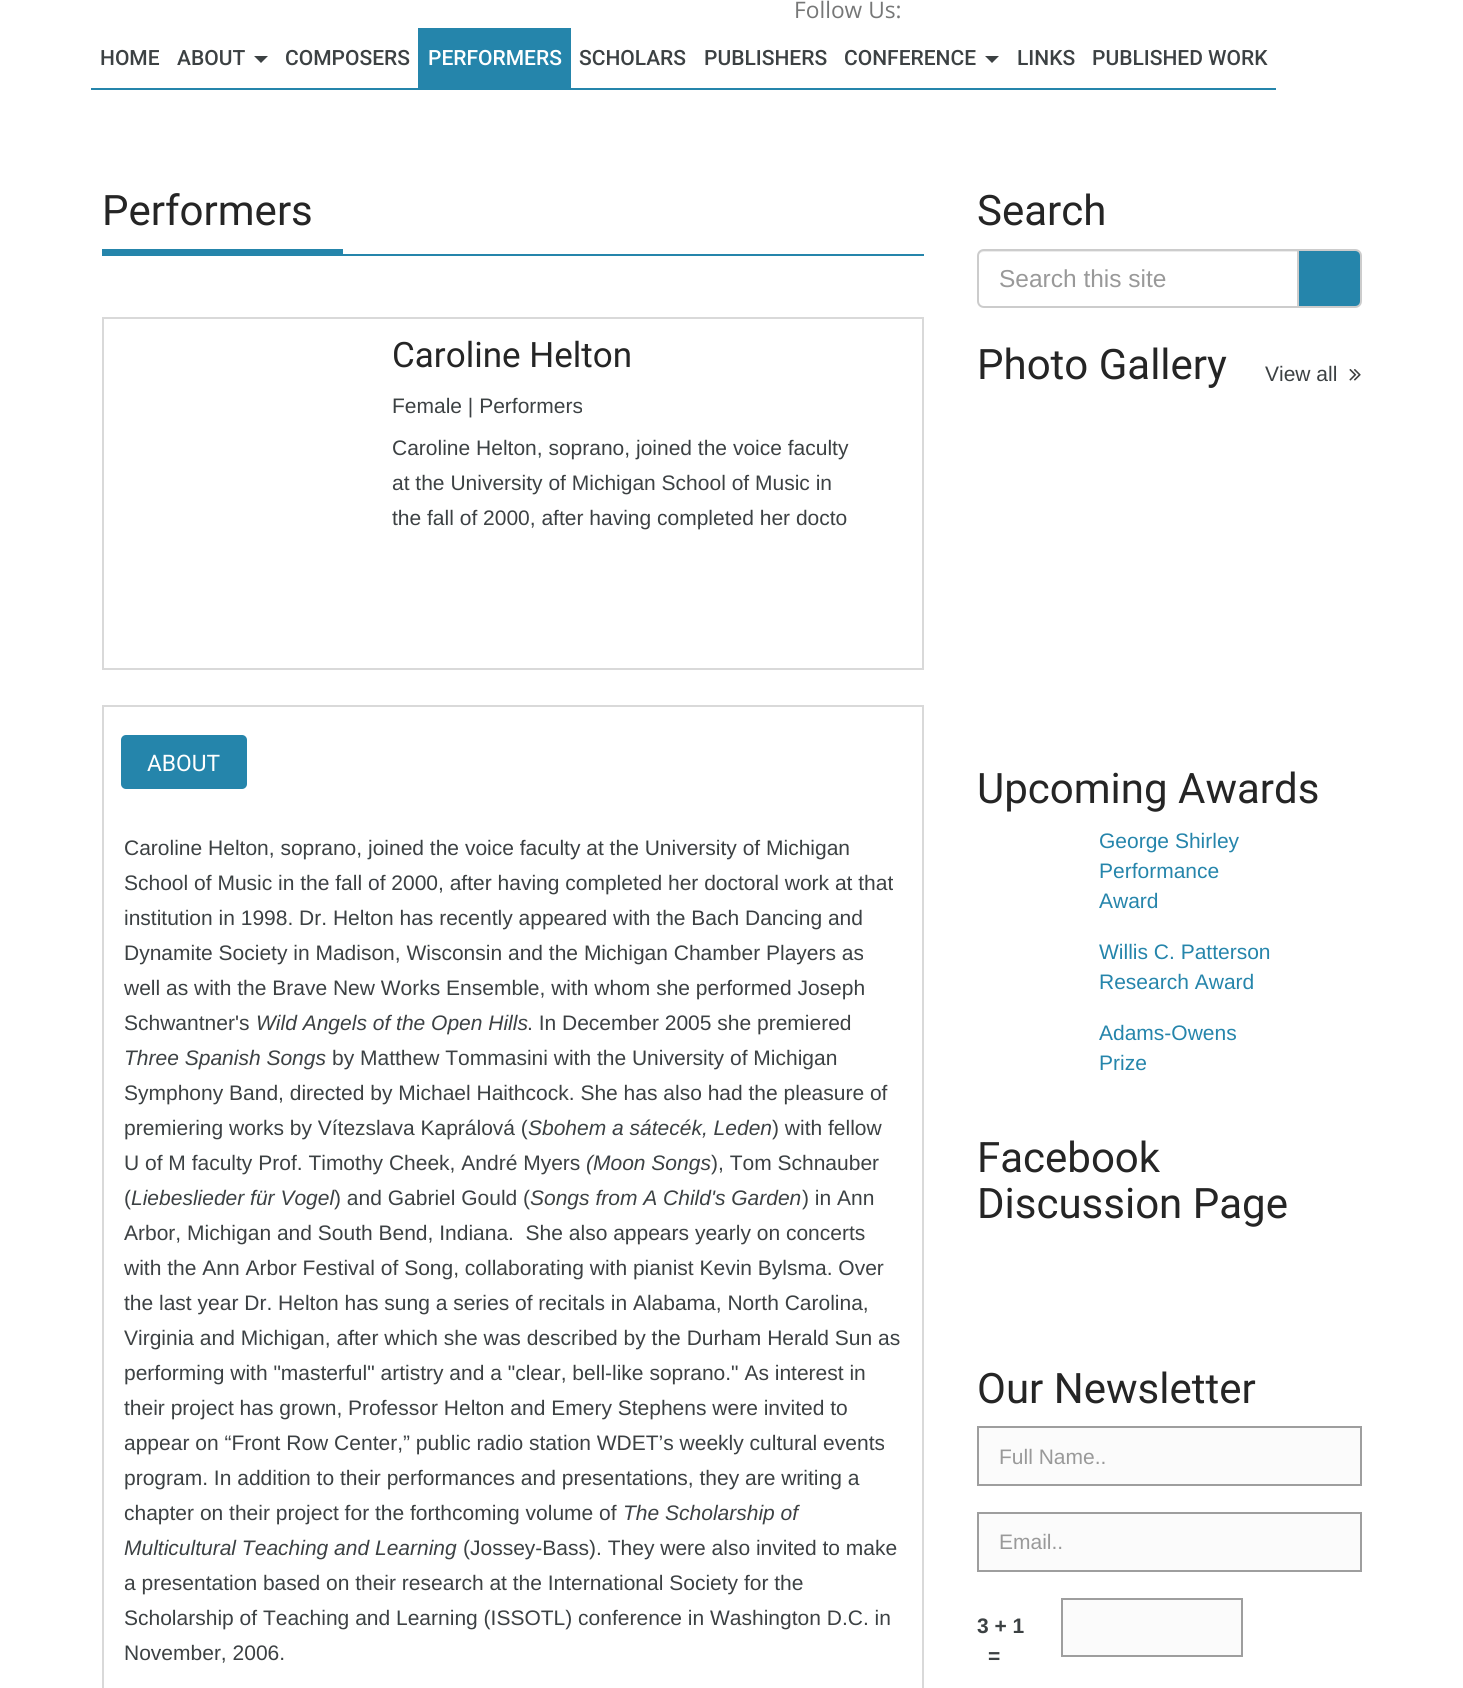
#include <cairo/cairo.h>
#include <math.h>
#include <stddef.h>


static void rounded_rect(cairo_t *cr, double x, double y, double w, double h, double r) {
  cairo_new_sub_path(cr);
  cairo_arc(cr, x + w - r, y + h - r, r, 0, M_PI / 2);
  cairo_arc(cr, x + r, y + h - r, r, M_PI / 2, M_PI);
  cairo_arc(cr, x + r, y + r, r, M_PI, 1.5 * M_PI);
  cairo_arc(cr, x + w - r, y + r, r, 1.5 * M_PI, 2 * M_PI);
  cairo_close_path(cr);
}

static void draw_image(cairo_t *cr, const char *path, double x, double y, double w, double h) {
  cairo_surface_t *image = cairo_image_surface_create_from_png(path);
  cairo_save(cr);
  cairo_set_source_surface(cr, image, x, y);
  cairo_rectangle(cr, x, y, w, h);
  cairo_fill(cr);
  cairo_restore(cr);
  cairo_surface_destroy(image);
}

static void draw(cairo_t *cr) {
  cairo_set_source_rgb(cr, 1, 1, 1);
  cairo_paint(cr);
  cairo_set_source_rgb(cr, 37 / 255.0, 133 / 255.0, 171 / 255.0);
  cairo_rectangle(cr, 91, 88, 327, 2);
  cairo_fill(cr);
  cairo_set_source_rgb(cr, 60 / 255.0, 65 / 255.0, 67 / 255.0);
  cairo_new_path(cr);
  cairo_move_to(cr, 254, 56);
  cairo_line_to(cr, 268, 56);
  cairo_line_to(cr, 261, 63);
  cairo_close_path(cr);
  cairo_fill(cr);
  cairo_set_source_rgb(cr, 37 / 255.0, 133 / 255.0, 171 / 255.0);
  cairo_rectangle(cr, 418, 28, 153, 62);
  cairo_fill(cr);
  cairo_rectangle(cr, 571, 88, 705, 2);
  cairo_fill(cr);
  cairo_set_source_rgb(cr, 60 / 255.0, 65 / 255.0, 67 / 255.0);
  cairo_new_path(cr);
  cairo_move_to(cr, 985, 56);
  cairo_line_to(cr, 999, 56);
  cairo_line_to(cr, 992, 63);
  cairo_close_path(cr);
  cairo_fill(cr);
  cairo_set_source_rgb(cr, 37 / 255.0, 133 / 255.0, 171 / 255.0);
  cairo_rectangle(cr, 102, 249, 241, 5);
  cairo_fill(cr);
  cairo_rectangle(cr, 102, 254, 822, 2);
  cairo_fill(cr);
  cairo_rectangle(cr, 103, 318, 820, 351);
  cairo_set_source_rgb(cr, 217 / 255.0, 217 / 255.0, 217 / 255.0);
  cairo_stroke(cr);
  cairo_rectangle(cr, 103, 706, 820, 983);
  cairo_stroke(cr);
  cairo_set_source_rgb(cr, 37 / 255.0, 133 / 255.0, 171 / 255.0);
  rounded_rect(cr, 121, 735, 126, 54, 5);
  cairo_fill(cr);
  cairo_new_path(cr);
  cairo_move_to(cr, 1298, 250);
  cairo_line_to(cr, 1355, 250);
  cairo_curve_to(cr, 1358.5, 250, 1361, 252.5, 1361, 256);
  cairo_line_to(cr, 1361, 301);
  cairo_curve_to(cr, 1361, 304.5, 1358.5, 307, 1355, 307);
  cairo_line_to(cr, 1298, 307);
  cairo_close_path(cr);
  cairo_fill_preserve(cr);
  cairo_set_source_rgb(cr, 204 / 255.0, 204 / 255.0, 204 / 255.0);
  cairo_stroke(cr);
  cairo_set_source_rgb(cr, 1, 1, 1);
  cairo_new_path(cr);
  cairo_move_to(cr, 984, 249);
  cairo_line_to(cr, 1299, 249);
  cairo_line_to(cr, 1299, 308);
  cairo_line_to(cr, 984, 308);
  cairo_curve_to(cr, 980, 308, 977, 305, 977, 301);
  cairo_line_to(cr, 977, 256);
  cairo_curve_to(cr, 977, 252, 980, 249, 984, 249);
  cairo_close_path(cr);
  cairo_fill(cr);
  cairo_set_source_rgb(cr, 236 / 255.0, 236 / 255.0, 236 / 255.0);
  cairo_new_path(cr);
  cairo_move_to(cr, 984, 252);
  cairo_line_to(cr, 1297, 252);
  cairo_line_to(cr, 1297, 250);
  cairo_line_to(cr, 983, 250);
  cairo_curve_to(cr, 980, 250, 978, 252, 978, 255);
  cairo_line_to(cr, 978, 257);
  cairo_curve_to(cr, 978, 254, 981, 252, 984, 252);
  cairo_close_path(cr);
  cairo_fill(cr);
  cairo_new_path(cr);
  cairo_move_to(cr, 984, 250);
  cairo_line_to(cr, 1298, 250);
  cairo_line_to(cr, 1298, 307);
  cairo_line_to(cr, 984, 307);
  cairo_curve_to(cr, 980.5, 307, 978, 304.5, 978, 301);
  cairo_line_to(cr, 978, 256);
  cairo_curve_to(cr, 978, 252.5, 980.5, 250, 984, 250);
  cairo_close_path(cr);
  cairo_set_source_rgb(cr, 204 / 255.0, 204 / 255.0, 204 / 255.0);
  cairo_stroke(cr);
  draw_image(cr, "images/1.png", 1349, 369, 12, 12);
  cairo_set_source_rgb(cr, 251 / 255.0, 251 / 255.0, 251 / 255.0);
  cairo_rectangle(cr, 978, 1427, 383, 58);
  cairo_fill_preserve(cr);
  cairo_set_source_rgb(cr, 158 / 255.0, 158 / 255.0, 158 / 255.0);
  cairo_stroke(cr);
  cairo_set_source_rgb(cr, 251 / 255.0, 251 / 255.0, 251 / 255.0);
  cairo_rectangle(cr, 978, 1513, 383, 58);
  cairo_fill_preserve(cr);
  cairo_set_source_rgb(cr, 158 / 255.0, 158 / 255.0, 158 / 255.0);
  cairo_stroke(cr);
  cairo_set_source_rgb(cr, 251 / 255.0, 251 / 255.0, 251 / 255.0);
  cairo_rectangle(cr, 1062, 1599, 180, 57);
  cairo_fill_preserve(cr);
  cairo_set_source_rgb(cr, 158 / 255.0, 158 / 255.0, 158 / 255.0);
  cairo_stroke(cr);
  cairo_select_font_face(cr, "Open Sans", CAIRO_FONT_SLANT_NORMAL, CAIRO_FONT_WEIGHT_NORMAL);
  cairo_set_font_size(cr, 22.75);
  cairo_set_source_rgb(cr, 118 / 255.0, 119 / 255.0, 119 / 255.0);
  cairo_move_to(cr, 794, 18);
  cairo_show_text(cr, "Follow Us:");
  cairo_select_font_face(cr, "Roboto Medium", CAIRO_FONT_SLANT_NORMAL, CAIRO_FONT_WEIGHT_NORMAL);
  cairo_set_font_size(cr, 21);
  cairo_set_source_rgb(cr, 60 / 255.0, 65 / 255.0, 67 / 255.0);
  cairo_move_to(cr, 100, 65);
  cairo_show_text(cr, "HOME");
  cairo_move_to(cr, 177, 65);
  cairo_show_text(cr, "ABOUT");
  cairo_move_to(cr, 285, 65);
  cairo_show_text(cr, "COMPOSERS");
  cairo_set_source_rgb(cr, 1, 1, 1);
  cairo_move_to(cr, 428, 65);
  cairo_show_text(cr, "PERFORMERS");
  cairo_set_source_rgb(cr, 60 / 255.0, 65 / 255.0, 67 / 255.0);
  cairo_move_to(cr, 579, 65);
  cairo_show_text(cr, "SCHOLARS");
  cairo_move_to(cr, 704, 65);
  cairo_show_text(cr, "PUBLISHERS");
  cairo_move_to(cr, 844, 65);
  cairo_show_text(cr, "CONFERENCE");
  cairo_move_to(cr, 1017, 65);
  cairo_show_text(cr, "LINKS");
  cairo_move_to(cr, 1092, 65);
  cairo_show_text(cr, "PUBLISHED WORK");
  cairo_select_font_face(cr, "Roboto", CAIRO_FONT_SLANT_NORMAL, CAIRO_FONT_WEIGHT_NORMAL);
  cairo_set_font_size(cr, 42);
  cairo_set_source_rgb(cr, 37 / 255.0, 37 / 255.0, 37 / 255.0);
  cairo_move_to(cr, 102, 225);
  cairo_show_text(cr, "Performers");
  cairo_set_font_size(cr, 35);
  cairo_move_to(cr, 392, 367);
  cairo_show_text(cr, "Caroline Helton");
  cairo_select_font_face(cr, "Liberation Sans", CAIRO_FONT_SLANT_NORMAL, CAIRO_FONT_WEIGHT_NORMAL);
  cairo_set_font_size(cr, 21);
  cairo_set_source_rgb(cr, 60 / 255.0, 65 / 255.0, 67 / 255.0);
  cairo_move_to(cr, 392, 413);
  cairo_show_text(cr, "Female | Performers");
  cairo_move_to(cr, 392, 455);
  cairo_show_text(cr, "Caroline Helton, soprano, joined the voice faculty");
  cairo_move_to(cr, 392, 490);
  cairo_show_text(cr, "at the University of Michigan School of Music in");
  cairo_move_to(cr, 392, 525);
  cairo_show_text(cr, "the fall of 2000, after having completed her docto");
  cairo_select_font_face(cr, "Roboto", CAIRO_FONT_SLANT_NORMAL, CAIRO_FONT_WEIGHT_NORMAL);
  cairo_set_font_size(cr, 22.75);
  cairo_set_source_rgb(cr, 1, 1, 1);
  cairo_move_to(cr, 147, 771);
  cairo_show_text(cr, "ABOUT");
  cairo_select_font_face(cr, "Liberation Sans", CAIRO_FONT_SLANT_NORMAL, CAIRO_FONT_WEIGHT_NORMAL);
  cairo_set_font_size(cr, 21);
  cairo_set_source_rgb(cr, 60 / 255.0, 65 / 255.0, 67 / 255.0);
  cairo_move_to(cr, 124, 855);
  cairo_show_text(cr, "Caroline Helton, soprano, joined the voice faculty at the University of Michigan");
  cairo_move_to(cr, 124, 890);
  cairo_show_text(cr, "School of Music in the fall of 2000, after having completed her doctoral work at that");
  cairo_move_to(cr, 124, 925);
  cairo_show_text(cr, "institution in 1998. Dr. Helton has recently appeared with the Bach Dancing and");
  cairo_move_to(cr, 124, 960);
  cairo_show_text(cr, "Dynamite Society in Madison, Wisconsin and the Michigan Chamber Players as");
  cairo_move_to(cr, 124, 995);
  cairo_show_text(cr, "well as with the Brave New Works Ensemble, with whom she performed Joseph");
  cairo_move_to(cr, 124, 1030);
  cairo_show_text(cr, "Schwantner's");
  cairo_select_font_face(cr, "Liberation Sans", CAIRO_FONT_SLANT_ITALIC, CAIRO_FONT_WEIGHT_NORMAL);
  cairo_move_to(cr, 256, 1030);
  cairo_show_text(cr, "Wild Angels of the Open Hills");
  cairo_select_font_face(cr, "Liberation Sans", CAIRO_FONT_SLANT_NORMAL, CAIRO_FONT_WEIGHT_NORMAL);
  cairo_move_to(cr, 527, 1030);
  cairo_show_text(cr, ". In December 2005 she premiered");
  cairo_select_font_face(cr, "Liberation Sans", CAIRO_FONT_SLANT_ITALIC, CAIRO_FONT_WEIGHT_NORMAL);
  cairo_move_to(cr, 124, 1065);
  cairo_show_text(cr, "Three Spanish Songs");
  cairo_select_font_face(cr, "Liberation Sans", CAIRO_FONT_SLANT_NORMAL, CAIRO_FONT_WEIGHT_NORMAL);
  cairo_move_to(cr, 332, 1065);
  cairo_show_text(cr, "by Matthew Tommasini with the University of Michigan");
  cairo_move_to(cr, 124, 1100);
  cairo_show_text(cr, "Symphony Band, directed by Michael Haithcock. She has also had the pleasure of");
  cairo_move_to(cr, 124, 1135);
  cairo_show_text(cr, "premiering works by Vítezslava Kaprálová (");
  cairo_select_font_face(cr, "Liberation Sans", CAIRO_FONT_SLANT_ITALIC, CAIRO_FONT_WEIGHT_NORMAL);
  cairo_move_to(cr, 528, 1135);
  cairo_show_text(cr, "Sbohem a sátecék, Leden");
  cairo_select_font_face(cr, "Liberation Sans", CAIRO_FONT_SLANT_NORMAL, CAIRO_FONT_WEIGHT_NORMAL);
  cairo_move_to(cr, 772, 1135);
  cairo_show_text(cr, ") with fellow");
  cairo_move_to(cr, 124, 1170);
  cairo_show_text(cr, "U of M faculty Prof. Timothy Cheek, André Myers");
  cairo_select_font_face(cr, "Liberation Sans", CAIRO_FONT_SLANT_ITALIC, CAIRO_FONT_WEIGHT_NORMAL);
  cairo_move_to(cr, 586, 1170);
  cairo_show_text(cr, "(Moon Songs");
  cairo_select_font_face(cr, "Liberation Sans", CAIRO_FONT_SLANT_NORMAL, CAIRO_FONT_WEIGHT_NORMAL);
  cairo_move_to(cr, 711, 1170);
  cairo_show_text(cr, "), Tom Schnauber");
  cairo_move_to(cr, 124, 1205);
  cairo_show_text(cr, "(");
  cairo_select_font_face(cr, "Liberation Sans", CAIRO_FONT_SLANT_ITALIC, CAIRO_FONT_WEIGHT_NORMAL);
  cairo_move_to(cr, 131, 1205);
  cairo_show_text(cr, "Liebeslieder für Vogel");
  cairo_select_font_face(cr, "Liberation Sans", CAIRO_FONT_SLANT_NORMAL, CAIRO_FONT_WEIGHT_NORMAL);
  cairo_move_to(cr, 334, 1205);
  cairo_show_text(cr, ") and Gabriel Gould (");
  cairo_select_font_face(cr, "Liberation Sans", CAIRO_FONT_SLANT_ITALIC, CAIRO_FONT_WEIGHT_NORMAL);
  cairo_move_to(cr, 530, 1205);
  cairo_show_text(cr, "Songs from A Child's Garden");
  cairo_select_font_face(cr, "Liberation Sans", CAIRO_FONT_SLANT_NORMAL, CAIRO_FONT_WEIGHT_NORMAL);
  cairo_move_to(cr, 802, 1205);
  cairo_show_text(cr, ") in Ann");
  cairo_move_to(cr, 124, 1240);
  cairo_show_text(cr, "Arbor, Michigan and South Bend, Indiana.  She also appears yearly on concerts");
  cairo_move_to(cr, 124, 1275);
  cairo_show_text(cr, "with the Ann Arbor Festival of Song, collaborating with pianist Kevin Bylsma. Over");
  cairo_move_to(cr, 124, 1310);
  cairo_show_text(cr, "the last year Dr. Helton has sung a series of recitals in Alabama, North Carolina,");
  cairo_move_to(cr, 124, 1345);
  cairo_show_text(cr, "Virginia and Michigan, after which she was described by the Durham Herald Sun as");
  cairo_move_to(cr, 124, 1380);
  cairo_show_text(cr, "performing with \"masterful\" artistry and a \"clear, bell-like soprano.\" As interest in");
  cairo_move_to(cr, 124, 1415);
  cairo_show_text(cr, "their project has grown, Professor Helton and Emery Stephens were invited to");
  cairo_move_to(cr, 124, 1450);
  cairo_show_text(cr, "appear on “Front Row Center,” public radio station WDET’s weekly cultural events");
  cairo_move_to(cr, 124, 1485);
  cairo_show_text(cr, "program. In addition to their performances and presentations, they are writing a");
  cairo_move_to(cr, 124, 1520);
  cairo_show_text(cr, "chapter on their project for the forthcoming volume of");
  cairo_select_font_face(cr, "Liberation Sans", CAIRO_FONT_SLANT_ITALIC, CAIRO_FONT_WEIGHT_NORMAL);
  cairo_move_to(cr, 623, 1520);
  cairo_show_text(cr, "The Scholarship of");
  cairo_move_to(cr, 124, 1555);
  cairo_show_text(cr, "Multicultural Teaching and Learning");
  cairo_select_font_face(cr, "Liberation Sans", CAIRO_FONT_SLANT_NORMAL, CAIRO_FONT_WEIGHT_NORMAL);
  cairo_move_to(cr, 463, 1555);
  cairo_show_text(cr, "(Jossey-Bass). They were also invited to make");
  cairo_move_to(cr, 124, 1590);
  cairo_show_text(cr, "a presentation based on their research at the International Society for the");
  cairo_move_to(cr, 124, 1625);
  cairo_show_text(cr, "Scholarship of Teaching and Learning (ISSOTL) conference in Washington D.C. in");
  cairo_move_to(cr, 124, 1660);
  cairo_show_text(cr, "November, 2006.");
  cairo_select_font_face(cr, "Roboto", CAIRO_FONT_SLANT_NORMAL, CAIRO_FONT_WEIGHT_NORMAL);
  cairo_set_font_size(cr, 42);
  cairo_set_source_rgb(cr, 37 / 255.0, 37 / 255.0, 37 / 255.0);
  cairo_move_to(cr, 977, 225);
  cairo_show_text(cr, "Search");
  cairo_select_font_face(cr, "Liberation Sans", CAIRO_FONT_SLANT_NORMAL, CAIRO_FONT_WEIGHT_NORMAL);
  cairo_set_font_size(cr, 24.5);
  cairo_set_source_rgb(cr, 153 / 255.0, 153 / 255.0, 153 / 255.0);
  cairo_move_to(cr, 999, 287);
  cairo_show_text(cr, "Search this site");
  cairo_select_font_face(cr, "Roboto", CAIRO_FONT_SLANT_NORMAL, CAIRO_FONT_WEIGHT_NORMAL);
  cairo_set_font_size(cr, 42);
  cairo_set_source_rgb(cr, 37 / 255.0, 37 / 255.0, 37 / 255.0);
  cairo_move_to(cr, 977, 379);
  cairo_show_text(cr, "Photo Gallery");
  cairo_select_font_face(cr, "Liberation Sans", CAIRO_FONT_SLANT_NORMAL, CAIRO_FONT_WEIGHT_NORMAL);
  cairo_set_font_size(cr, 21);
  cairo_set_source_rgb(cr, 60 / 255.0, 65 / 255.0, 67 / 255.0);
  cairo_move_to(cr, 1265, 381);
  cairo_show_text(cr, "View all");
  cairo_select_font_face(cr, "Roboto", CAIRO_FONT_SLANT_NORMAL, CAIRO_FONT_WEIGHT_NORMAL);
  cairo_set_font_size(cr, 42);
  cairo_set_source_rgb(cr, 37 / 255.0, 37 / 255.0, 37 / 255.0);
  cairo_move_to(cr, 977, 803);
  cairo_show_text(cr, "Upcoming Awards");
  cairo_select_font_face(cr, "Liberation Sans", CAIRO_FONT_SLANT_NORMAL, CAIRO_FONT_WEIGHT_NORMAL);
  cairo_set_font_size(cr, 21);
  cairo_set_source_rgb(cr, 37 / 255.0, 133 / 255.0, 171 / 255.0);
  cairo_move_to(cr, 1099, 848);
  cairo_show_text(cr, "George Shirley");
  cairo_move_to(cr, 1099, 878);
  cairo_show_text(cr, "Performance");
  cairo_move_to(cr, 1099, 908);
  cairo_show_text(cr, "Award");
  cairo_move_to(cr, 1099, 959);
  cairo_show_text(cr, "Willis C. Patterson");
  cairo_move_to(cr, 1099, 989);
  cairo_show_text(cr, "Research Award");
  cairo_move_to(cr, 1099, 1040);
  cairo_show_text(cr, "Adams-Owens");
  cairo_move_to(cr, 1099, 1070);
  cairo_show_text(cr, "Prize");
  cairo_select_font_face(cr, "Roboto", CAIRO_FONT_SLANT_NORMAL, CAIRO_FONT_WEIGHT_NORMAL);
  cairo_set_font_size(cr, 42);
  cairo_set_source_rgb(cr, 37 / 255.0, 37 / 255.0, 37 / 255.0);
  cairo_move_to(cr, 977, 1172);
  cairo_show_text(cr, "Facebook");
  cairo_move_to(cr, 977, 1218);
  cairo_show_text(cr, "Discussion Page");
  cairo_move_to(cr, 977, 1403);
  cairo_show_text(cr, "Our Newsletter");
  cairo_select_font_face(cr, "Liberation Sans", CAIRO_FONT_SLANT_NORMAL, CAIRO_FONT_WEIGHT_NORMAL);
  cairo_set_font_size(cr, 21);
  cairo_set_source_rgb(cr, 153 / 255.0, 153 / 255.0, 153 / 255.0);
  cairo_move_to(cr, 999, 1464);
  cairo_show_text(cr, "Full Name..");
  cairo_move_to(cr, 999, 1549);
  cairo_show_text(cr, "Email..");
  cairo_select_font_face(cr, "Liberation Sans", CAIRO_FONT_SLANT_NORMAL, CAIRO_FONT_WEIGHT_BOLD);
  cairo_set_source_rgb(cr, 60 / 255.0, 65 / 255.0, 67 / 255.0);
  cairo_move_to(cr, 977, 1633);
  cairo_show_text(cr, "3 + 1");
  cairo_move_to(cr, 988, 1663);
  cairo_show_text(cr, "=");
}

int main(void) {
  cairo_surface_t *surface = cairo_image_surface_create(CAIRO_FORMAT_RGB24, 1463, 1688);
  cairo_t *cr = cairo_create(surface);
  cairo_font_options_t *options = cairo_font_options_create();
  cairo_font_options_set_hint_metrics(options, CAIRO_HINT_METRICS_OFF);
  cairo_font_options_set_hint_style(options, CAIRO_HINT_STYLE_NONE);
  cairo_set_font_options(cr, options);
  cairo_set_miter_limit(cr, 4);
  draw(cr);
  cairo_surface_write_to_png(surface, "out.png");
  cairo_font_options_destroy(options);
  cairo_destroy(cr);
  cairo_surface_destroy(surface);
  return 0;
}
